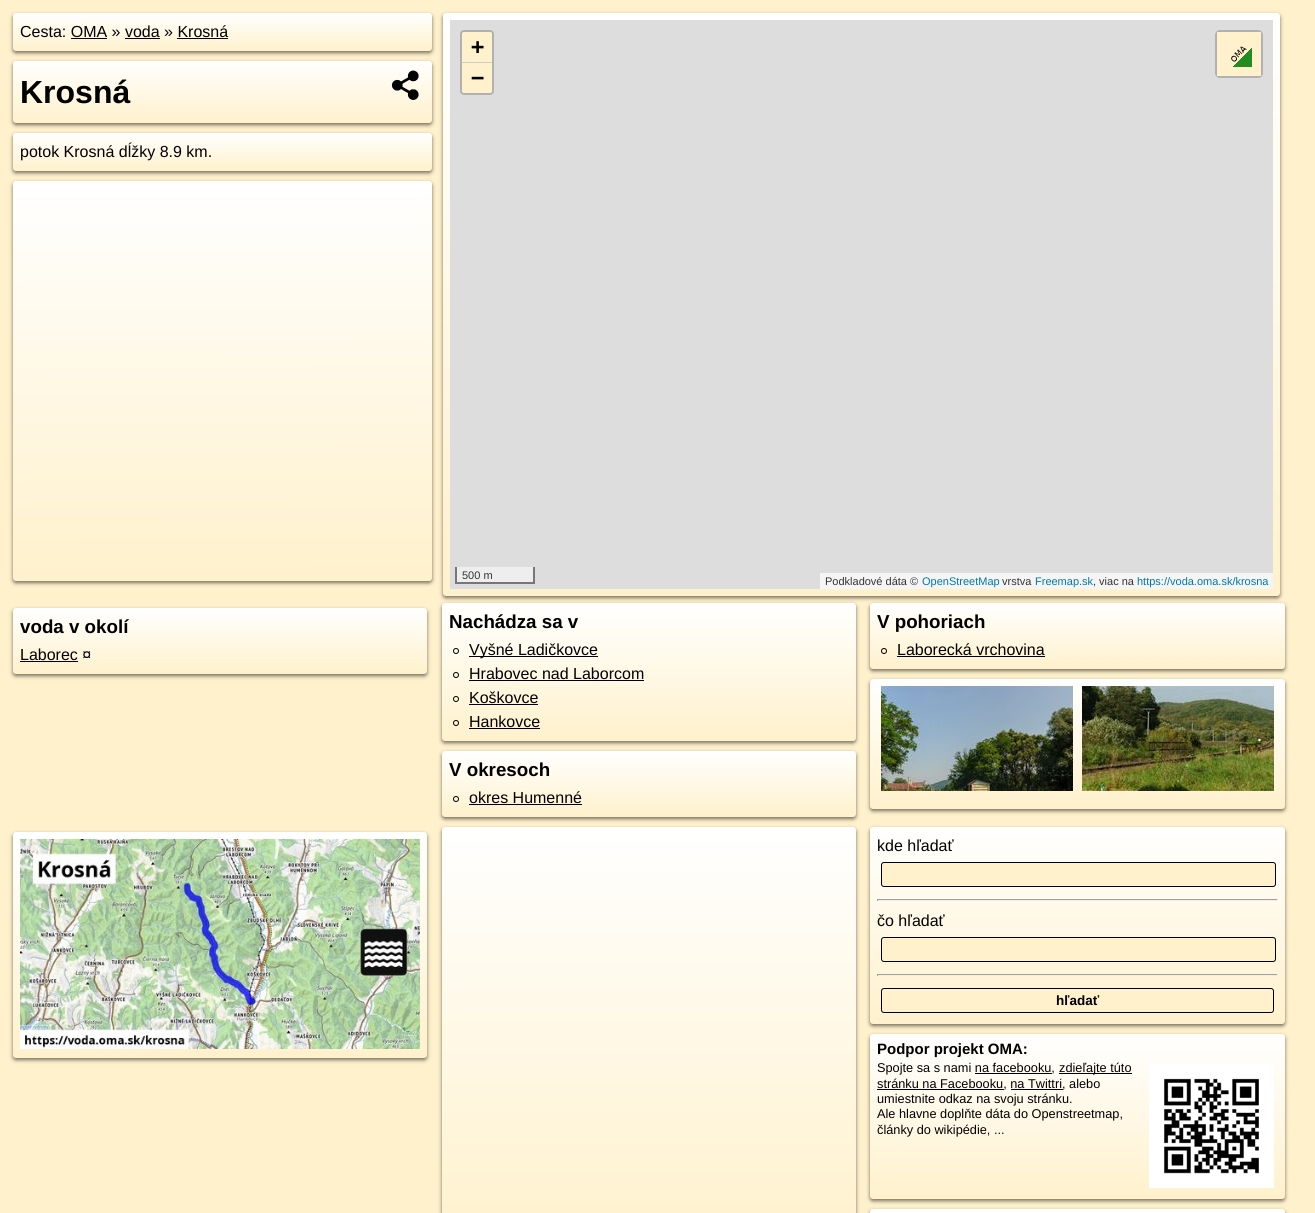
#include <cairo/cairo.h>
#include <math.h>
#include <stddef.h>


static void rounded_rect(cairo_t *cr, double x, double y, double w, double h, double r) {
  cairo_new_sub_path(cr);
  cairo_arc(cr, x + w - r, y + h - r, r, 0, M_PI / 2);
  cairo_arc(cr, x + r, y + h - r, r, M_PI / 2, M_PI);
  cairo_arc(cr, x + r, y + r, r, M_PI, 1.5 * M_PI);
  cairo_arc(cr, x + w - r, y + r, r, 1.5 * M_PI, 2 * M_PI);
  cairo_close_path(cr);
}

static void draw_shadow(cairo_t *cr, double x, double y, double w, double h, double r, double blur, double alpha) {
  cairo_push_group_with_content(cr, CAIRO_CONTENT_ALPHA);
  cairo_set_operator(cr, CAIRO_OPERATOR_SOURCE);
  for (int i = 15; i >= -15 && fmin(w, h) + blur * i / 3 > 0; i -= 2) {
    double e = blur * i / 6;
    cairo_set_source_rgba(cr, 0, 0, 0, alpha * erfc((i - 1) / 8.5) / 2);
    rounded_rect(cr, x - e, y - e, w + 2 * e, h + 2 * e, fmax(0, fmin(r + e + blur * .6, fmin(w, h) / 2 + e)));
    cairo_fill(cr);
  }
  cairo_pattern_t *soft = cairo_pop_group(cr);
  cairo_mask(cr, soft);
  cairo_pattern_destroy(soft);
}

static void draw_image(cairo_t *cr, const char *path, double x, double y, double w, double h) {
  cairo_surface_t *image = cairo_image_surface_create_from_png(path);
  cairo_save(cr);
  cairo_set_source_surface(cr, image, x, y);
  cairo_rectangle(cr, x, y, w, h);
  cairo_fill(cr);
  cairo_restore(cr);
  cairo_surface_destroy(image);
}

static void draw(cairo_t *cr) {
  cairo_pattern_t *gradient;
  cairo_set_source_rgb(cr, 1, 241 / 255.0, 204 / 255.0);
  cairo_paint(cr);
  cairo_set_source_rgb(cr, 0, 0, 0);
  draw_shadow(cr, 13, 15, 419, 38, 3, 2, 0.55);
  gradient = cairo_pattern_create_linear(223, 13, 223, 51);
  cairo_pattern_add_color_stop_rgba(gradient, 0, 1, 1, 1, 1);
  cairo_pattern_add_color_stop_rgba(gradient, 1, 1, 241 / 255.0, 204 / 255.0, 1);
  cairo_set_source(cr, gradient);
  cairo_pattern_destroy(gradient);
  rounded_rect(cr, 13, 13, 419, 38, 3);
  cairo_fill(cr);
  cairo_set_source_rgb(cr, 0, 0, 0);
  cairo_rectangle(cr, 71, 38, 36, 1);
  cairo_fill(cr);
  cairo_rectangle(cr, 125, 38, 35, 1);
  cairo_fill(cr);
  cairo_rectangle(cr, 177, 38, 51, 1);
  cairo_fill(cr);
  cairo_set_source_rgb(cr, 0, 0, 0);
  draw_shadow(cr, 13, 63, 419, 62, 3, 2, 0.55);
  gradient = cairo_pattern_create_linear(223, 61, 223, 123);
  cairo_pattern_add_color_stop_rgba(gradient, 0, 1, 1, 1, 1);
  cairo_pattern_add_color_stop_rgba(gradient, 1, 1, 241 / 255.0, 204 / 255.0, 1);
  cairo_set_source(cr, gradient);
  cairo_pattern_destroy(gradient);
  rounded_rect(cr, 13, 61, 419, 62, 3);
  cairo_fill(cr);
  draw_image(cr, "images/1.png", 391, 70, 28, 30);
  cairo_set_source_rgb(cr, 0, 0, 0);
  draw_shadow(cr, 13, 135, 419, 38, 3, 2, 0.55);
  gradient = cairo_pattern_create_linear(223, 133, 223, 171);
  cairo_pattern_add_color_stop_rgba(gradient, 0, 1, 1, 1, 1);
  cairo_pattern_add_color_stop_rgba(gradient, 1, 1, 241 / 255.0, 204 / 255.0, 1);
  cairo_set_source(cr, gradient);
  cairo_pattern_destroy(gradient);
  rounded_rect(cr, 13, 133, 419, 38, 3);
  cairo_fill(cr);
  cairo_set_source_rgb(cr, 0, 0, 0);
  draw_shadow(cr, 13, 183, 419, 400, 3, 2, 0.55);
  gradient = cairo_pattern_create_linear(222, 181, 223, 581);
  cairo_pattern_add_color_stop_rgba(gradient, 0, 1, 1, 1, 1);
  cairo_pattern_add_color_stop_rgba(gradient, 1, 1, 241 / 255.0, 204 / 255.0, 1);
  cairo_set_source(cr, gradient);
  cairo_pattern_destroy(gradient);
  rounded_rect(cr, 13, 181, 419, 400, 3);
  cairo_fill(cr);
  cairo_set_source_rgb(cr, 0, 0, 0);
  draw_shadow(cr, 443, 15, 837, 583, 3, 2, 0.55);
  gradient = cairo_pattern_create_linear(862, 13, 862, 596);
  cairo_pattern_add_color_stop_rgba(gradient, 0, 1, 1, 1, 1);
  cairo_pattern_add_color_stop_rgba(gradient, 1, 1, 241 / 255.0, 204 / 255.0, 1);
  cairo_set_source(cr, gradient);
  cairo_pattern_destroy(gradient);
  rounded_rect(cr, 443, 13, 837, 583, 3);
  cairo_fill(cr);
  cairo_set_source_rgb(cr, 221 / 255.0, 221 / 255.0, 221 / 255.0);
  cairo_rectangle(cr, 450, 20, 823, 569);
  cairo_fill(cr);
  rounded_rect(cr, 461, 31, 32, 63, 3);
  cairo_set_source_rgb(cr, 177 / 255.0, 177 / 255.0, 177 / 255.0);
  cairo_stroke(cr);
  cairo_set_source_rgb(cr, 1, 241 / 255.0, 204 / 255.0);
  cairo_new_path(cr);
  cairo_move_to(cr, 464, 32);
  cairo_line_to(cr, 490, 32);
  cairo_curve_to(cr, 491, 32, 492, 33, 492, 34);
  cairo_line_to(cr, 492, 63);
  cairo_line_to(cr, 462, 63);
  cairo_line_to(cr, 462, 34);
  cairo_curve_to(cr, 462, 33, 463, 32, 464, 32);
  cairo_close_path(cr);
  cairo_fill(cr);
  cairo_set_source_rgb(cr, 204 / 255.0, 204 / 255.0, 204 / 255.0);
  cairo_rectangle(cr, 462, 62, 30, 1);
  cairo_fill(cr);
  cairo_set_source_rgb(cr, 1, 241 / 255.0, 204 / 255.0);
  cairo_new_path(cr);
  cairo_move_to(cr, 462, 63);
  cairo_line_to(cr, 492, 63);
  cairo_line_to(cr, 492, 91);
  cairo_curve_to(cr, 492, 92, 491, 93, 490, 93);
  cairo_line_to(cr, 464, 93);
  cairo_curve_to(cr, 463, 93, 462, 92, 462, 91);
  cairo_close_path(cr);
  cairo_fill(cr);
  rounded_rect(cr, 1216, 31, 46, 46, 4);
  cairo_set_source_rgb(cr, 177 / 255.0, 177 / 255.0, 177 / 255.0);
  cairo_stroke(cr);
  cairo_set_source_rgb(cr, 1, 241 / 255.0, 204 / 255.0);
  cairo_rectangle(cr, 1217, 32, 44, 44);
  cairo_fill(cr);
  draw_image(cr, "images/2.png", 1231, 46, 21, 21);
  cairo_set_source_rgb(cr, 238 / 255.0, 238 / 255.0, 238 / 255.0);
  cairo_rectangle(cr, 457, 567, 76, 15);
  cairo_fill(cr);
  cairo_set_source_rgb(cr, 119 / 255.0, 119 / 255.0, 119 / 255.0);
  cairo_rectangle(cr, 533, 567, 2, 17);
  cairo_fill(cr);
  cairo_rectangle(cr, 455, 582, 80, 2);
  cairo_fill(cr);
  cairo_rectangle(cr, 455, 567, 2, 17);
  cairo_fill(cr);
  cairo_set_source_rgb(cr, 245 / 255.0, 245 / 255.0, 245 / 255.0);
  cairo_rectangle(cr, 820, 573, 453, 16);
  cairo_fill(cr);
  cairo_set_source_rgb(cr, 0, 0, 0);
  draw_shadow(cr, 13, 610, 414, 66, 3, 2, 0.55);
  gradient = cairo_pattern_create_linear(220, 608, 220, 674);
  cairo_pattern_add_color_stop_rgba(gradient, 0, 1, 1, 1, 1);
  cairo_pattern_add_color_stop_rgba(gradient, 1, 1, 241 / 255.0, 204 / 255.0, 1);
  cairo_set_source(cr, gradient);
  cairo_pattern_destroy(gradient);
  rounded_rect(cr, 13, 608, 414, 66, 3);
  cairo_fill(cr);
  cairo_set_source_rgb(cr, 0, 0, 0);
  cairo_rectangle(cr, 20, 661, 58, 1);
  cairo_fill(cr);
  cairo_set_source_rgb(cr, 0, 0, 0);
  draw_shadow(cr, 442, 605, 414, 138, 3, 2, 0.55);
  gradient = cairo_pattern_create_linear(649, 603, 649, 741);
  cairo_pattern_add_color_stop_rgba(gradient, 0, 1, 1, 1, 1);
  cairo_pattern_add_color_stop_rgba(gradient, 1, 1, 241 / 255.0, 204 / 255.0, 1);
  cairo_set_source(cr, gradient);
  cairo_pattern_destroy(gradient);
  rounded_rect(cr, 442, 603, 414, 138, 3);
  cairo_fill(cr);
  cairo_arc(cr, 456, 651, 2.5, 0, 2 * M_PI);
  cairo_set_source_rgb(cr, 0, 0, 0);
  cairo_set_line_width(cr, 1);
  cairo_stroke(cr);
  cairo_rectangle(cr, 469, 656, 129, 1);
  cairo_fill(cr);
  cairo_arc(cr, 456, 675, 2.5, 0, 2 * M_PI);
  cairo_stroke(cr);
  cairo_rectangle(cr, 469, 680, 175, 1);
  cairo_fill(cr);
  cairo_arc(cr, 456, 699, 2.5, 0, 2 * M_PI);
  cairo_stroke(cr);
  cairo_rectangle(cr, 469, 704, 69, 1);
  cairo_fill(cr);
  cairo_arc(cr, 456, 723, 2.5, 0, 2 * M_PI);
  cairo_stroke(cr);
  cairo_rectangle(cr, 469, 728, 71, 1);
  cairo_fill(cr);
  cairo_set_source_rgb(cr, 0, 0, 0);
  draw_shadow(cr, 870, 605, 415, 66, 3, 2, 0.55);
  gradient = cairo_pattern_create_linear(1078, 603, 1078, 669);
  cairo_pattern_add_color_stop_rgba(gradient, 0, 1, 1, 1, 1);
  cairo_pattern_add_color_stop_rgba(gradient, 1, 1, 241 / 255.0, 204 / 255.0, 1);
  cairo_set_source(cr, gradient);
  cairo_pattern_destroy(gradient);
  rounded_rect(cr, 870, 603, 415, 66, 3);
  cairo_fill(cr);
  cairo_arc(cr, 884, 651, 2.5, 0, 2 * M_PI);
  cairo_set_source_rgb(cr, 0, 0, 0);
  cairo_stroke(cr);
  cairo_rectangle(cr, 897, 656, 148, 1);
  cairo_fill(cr);
  cairo_set_source_rgb(cr, 0, 0, 0);
  draw_shadow(cr, 442, 753, 414, 66, 3, 2, 0.55);
  gradient = cairo_pattern_create_linear(649, 751, 649, 817);
  cairo_pattern_add_color_stop_rgba(gradient, 0, 1, 1, 1, 1);
  cairo_pattern_add_color_stop_rgba(gradient, 1, 1, 241 / 255.0, 204 / 255.0, 1);
  cairo_set_source(cr, gradient);
  cairo_pattern_destroy(gradient);
  rounded_rect(cr, 442, 751, 414, 66, 3);
  cairo_fill(cr);
  cairo_arc(cr, 456, 799, 2.5, 0, 2 * M_PI);
  cairo_set_source_rgb(cr, 0, 0, 0);
  cairo_stroke(cr);
  cairo_rectangle(cr, 469, 804, 113, 1);
  cairo_fill(cr);
  cairo_set_source_rgb(cr, 0, 0, 0);
  draw_shadow(cr, 870, 681, 415, 130, 3, 2, 0.55);
  gradient = cairo_pattern_create_linear(1078, 679, 1078, 809);
  cairo_pattern_add_color_stop_rgba(gradient, 0, 1, 1, 1, 1);
  cairo_pattern_add_color_stop_rgba(gradient, 1, 1, 241 / 255.0, 204 / 255.0, 1);
  cairo_set_source(cr, gradient);
  cairo_pattern_destroy(gradient);
  rounded_rect(cr, 870, 679, 415, 130, 3);
  cairo_fill(cr);
  draw_image(cr, "images/3.png", 881, 686, 192, 105);
  draw_image(cr, "images/4.png", 1082, 686, 192, 105);
  cairo_set_source_rgb(cr, 0, 0, 0);
  draw_shadow(cr, 13, 834, 414, 226, 3, 2, 0.55);
  gradient = cairo_pattern_create_linear(220, 832, 220, 1058);
  cairo_pattern_add_color_stop_rgba(gradient, 0, 1, 1, 1, 1);
  cairo_pattern_add_color_stop_rgba(gradient, 1, 1, 241 / 255.0, 204 / 255.0, 1);
  cairo_set_source(cr, gradient);
  cairo_pattern_destroy(gradient);
  rounded_rect(cr, 13, 832, 414, 226, 3);
  cairo_fill(cr);
  draw_image(cr, "images/5.png", 20, 839, 400, 210);
  cairo_set_source_rgb(cr, 0, 0, 0);
  draw_shadow(cr, 442, 829, 414, 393, 3, 2, 0.55);
  gradient = cairo_pattern_create_linear(649, 827, 649, 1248);
  cairo_pattern_add_color_stop_rgba(gradient, 0, 1, 1, 1, 1);
  cairo_pattern_add_color_stop_rgba(gradient, 1, 1, 241 / 255.0, 204 / 255.0, 1);
  cairo_set_source(cr, gradient);
  cairo_pattern_destroy(gradient);
  rounded_rect(cr, 442, 827, 414, 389, 3);
  cairo_fill(cr);
  cairo_set_source_rgb(cr, 0, 0, 0);
  draw_shadow(cr, 870, 829, 415, 197, 3, 2, 0.55);
  gradient = cairo_pattern_create_linear(1078, 827, 1078, 1024);
  cairo_pattern_add_color_stop_rgba(gradient, 0, 1, 1, 1, 1);
  cairo_pattern_add_color_stop_rgba(gradient, 1, 1, 241 / 255.0, 204 / 255.0, 1);
  cairo_set_source(cr, gradient);
  cairo_pattern_destroy(gradient);
  rounded_rect(cr, 870, 827, 415, 197, 3);
  cairo_fill(cr);
  cairo_set_source_rgb(cr, 1, 241 / 255.0, 204 / 255.0);
  rounded_rect(cr, 881.5, 862.5, 394, 24, 2.5);
  cairo_fill_preserve(cr);
  cairo_set_source_rgb(cr, 0, 0, 0);
  cairo_stroke(cr);
  cairo_set_source_rgb(cr, 159 / 255.0, 159 / 255.0, 159 / 255.0);
  cairo_rectangle(cr, 877, 899, 401, 1);
  cairo_fill(cr);
  cairo_set_source_rgb(cr, 238 / 255.0, 238 / 255.0, 238 / 255.0);
  cairo_rectangle(cr, 1277, 899, 1, 2);
  cairo_fill(cr);
  cairo_rectangle(cr, 877, 900, 401, 1);
  cairo_fill(cr);
  cairo_set_source_rgb(cr, 159 / 255.0, 159 / 255.0, 159 / 255.0);
  cairo_rectangle(cr, 877, 899, 1, 2);
  cairo_fill(cr);
  cairo_set_source_rgb(cr, 1, 241 / 255.0, 204 / 255.0);
  rounded_rect(cr, 881.5, 937.5, 394, 24, 2.5);
  cairo_fill_preserve(cr);
  cairo_set_source_rgb(cr, 0, 0, 0);
  cairo_stroke(cr);
  cairo_set_source_rgb(cr, 159 / 255.0, 159 / 255.0, 159 / 255.0);
  cairo_rectangle(cr, 877, 974, 401, 1);
  cairo_fill(cr);
  cairo_set_source_rgb(cr, 238 / 255.0, 238 / 255.0, 238 / 255.0);
  cairo_rectangle(cr, 1277, 974, 1, 2);
  cairo_fill(cr);
  cairo_rectangle(cr, 877, 975, 401, 1);
  cairo_fill(cr);
  cairo_set_source_rgb(cr, 159 / 255.0, 159 / 255.0, 159 / 255.0);
  cairo_rectangle(cr, 877, 974, 1, 2);
  cairo_fill(cr);
  cairo_set_source_rgb(cr, 1, 241 / 255.0, 204 / 255.0);
  rounded_rect(cr, 881.5, 988.5, 392, 24, 2.5);
  cairo_fill_preserve(cr);
  cairo_set_source_rgb(cr, 0, 0, 0);
  cairo_stroke(cr);
  cairo_set_source_rgb(cr, 0, 0, 0);
  draw_shadow(cr, 870, 1036, 415, 165, 3, 2, 0.55);
  gradient = cairo_pattern_create_linear(1078, 1034, 1078, 1199);
  cairo_pattern_add_color_stop_rgba(gradient, 0, 1, 1, 1, 1);
  cairo_pattern_add_color_stop_rgba(gradient, 1, 1, 241 / 255.0, 204 / 255.0, 1);
  cairo_set_source(cr, gradient);
  cairo_pattern_destroy(gradient);
  rounded_rect(cr, 870, 1034, 415, 165, 3);
  cairo_fill(cr);
  cairo_set_source_rgb(cr, 0, 0, 0);
  cairo_rectangle(cr, 1059, 1073, 73, 1);
  cairo_fill(cr);
  cairo_rectangle(cr, 975, 1073, 77, 1);
  cairo_fill(cr);
  cairo_rectangle(cr, 877, 1089, 127, 1);
  cairo_fill(cr);
  cairo_rectangle(cr, 1011, 1089, 52, 1);
  cairo_fill(cr);
  draw_image(cr, "images/6.png", 1149, 1064, 125, 124);
  cairo_set_source_rgb(cr, 0, 0, 0);
  draw_shadow(cr, 870, 1211, 415, 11, 3, 2, 0.55);
  gradient = cairo_pattern_create_linear(1078, 1209, 1078, 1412);
  cairo_pattern_add_color_stop_rgba(gradient, 0, 1, 1, 1, 1);
  cairo_pattern_add_color_stop_rgba(gradient, 1, 1, 241 / 255.0, 204 / 255.0, 1);
  cairo_set_source(cr, gradient);
  cairo_pattern_destroy(gradient);
  rounded_rect(cr, 870, 1209, 415, 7, 3);
  cairo_fill(cr);
  cairo_select_font_face(cr, "Liberation Sans", CAIRO_FONT_SLANT_NORMAL, CAIRO_FONT_WEIGHT_NORMAL);
  cairo_set_font_size(cr, 16);
  cairo_set_source_rgb(cr, 0, 0, 0);
  cairo_move_to(cr, 20, 37);
  cairo_show_text(cr, "Cesta: OMA » voda » Krosná");
  cairo_select_font_face(cr, "Liberation Sans", CAIRO_FONT_SLANT_NORMAL, CAIRO_FONT_WEIGHT_BOLD);
  cairo_set_font_size(cr, 32);
  cairo_move_to(cr, 20, 103);
  cairo_show_text(cr, "Krosná");
  cairo_select_font_face(cr, "Liberation Sans", CAIRO_FONT_SLANT_NORMAL, CAIRO_FONT_WEIGHT_NORMAL);
  cairo_set_font_size(cr, 16);
  cairo_move_to(cr, 20, 157);
  cairo_show_text(cr, "potok Krosná dĺžky 8.9 km.");
  cairo_select_font_face(cr, "DejaVu Sans Mono", CAIRO_FONT_SLANT_NORMAL, CAIRO_FONT_WEIGHT_BOLD);
  cairo_set_font_size(cr, 22);
  cairo_move_to(cr, 471, 54);
  cairo_show_text(cr, "+");
  cairo_move_to(cr, 471, 85);
  cairo_show_text(cr, "−");
  cairo_select_font_face(cr, "Liberation Sans", CAIRO_FONT_SLANT_NORMAL, CAIRO_FONT_WEIGHT_NORMAL);
  cairo_set_font_size(cr, 11);
  cairo_set_source_rgb(cr, 51 / 255.0, 51 / 255.0, 51 / 255.0);
  cairo_move_to(cr, 462, 579);
  cairo_show_text(cr, "500 m");
  cairo_move_to(cr, 825, 585);
  cairo_show_text(cr, "Podkladové dáta ©");
  cairo_set_source_rgb(cr, 0, 120 / 255.0, 168 / 255.0);
  cairo_move_to(cr, 922, 585);
  cairo_show_text(cr, "OpenStreetMap");
  cairo_set_source_rgb(cr, 51 / 255.0, 51 / 255.0, 51 / 255.0);
  cairo_move_to(cr, 1002, 585);
  cairo_show_text(cr, "vrstva");
  cairo_set_source_rgb(cr, 0, 120 / 255.0, 168 / 255.0);
  cairo_move_to(cr, 1035, 585);
  cairo_show_text(cr, "Freemap.sk");
  cairo_set_source_rgb(cr, 51 / 255.0, 51 / 255.0, 51 / 255.0);
  cairo_move_to(cr, 1093, 585);
  cairo_show_text(cr, ", viac na");
  cairo_set_source_rgb(cr, 0, 120 / 255.0, 168 / 255.0);
  cairo_move_to(cr, 1137, 585);
  cairo_show_text(cr, "https://voda.oma.sk/krosna");
  cairo_select_font_face(cr, "Liberation Sans", CAIRO_FONT_SLANT_NORMAL, CAIRO_FONT_WEIGHT_BOLD);
  cairo_set_font_size(cr, 18.75);
  cairo_set_source_rgb(cr, 0, 0, 0);
  cairo_move_to(cr, 20, 633);
  cairo_show_text(cr, "voda v okolí");
  cairo_select_font_face(cr, "Liberation Sans", CAIRO_FONT_SLANT_NORMAL, CAIRO_FONT_WEIGHT_NORMAL);
  cairo_set_font_size(cr, 16);
  cairo_move_to(cr, 20, 660);
  cairo_show_text(cr, "Laborec ¤");
  cairo_select_font_face(cr, "Liberation Sans", CAIRO_FONT_SLANT_NORMAL, CAIRO_FONT_WEIGHT_BOLD);
  cairo_set_font_size(cr, 18.75);
  cairo_move_to(cr, 449, 628);
  cairo_show_text(cr, "Nachádza sa v");
  cairo_select_font_face(cr, "Liberation Sans", CAIRO_FONT_SLANT_NORMAL, CAIRO_FONT_WEIGHT_NORMAL);
  cairo_set_font_size(cr, 16);
  cairo_move_to(cr, 469, 655);
  cairo_show_text(cr, "Vyšné Ladičkovce");
  cairo_move_to(cr, 469, 679);
  cairo_show_text(cr, "Hrabovec nad Laborcom");
  cairo_move_to(cr, 469, 703);
  cairo_show_text(cr, "Koškovce");
  cairo_move_to(cr, 469, 727);
  cairo_show_text(cr, "Hankovce");
  cairo_select_font_face(cr, "Liberation Sans", CAIRO_FONT_SLANT_NORMAL, CAIRO_FONT_WEIGHT_BOLD);
  cairo_set_font_size(cr, 18.75);
  cairo_move_to(cr, 877, 628);
  cairo_show_text(cr, "V pohoriach");
  cairo_select_font_face(cr, "Liberation Sans", CAIRO_FONT_SLANT_NORMAL, CAIRO_FONT_WEIGHT_NORMAL);
  cairo_set_font_size(cr, 16);
  cairo_move_to(cr, 897, 655);
  cairo_show_text(cr, "Laborecká vrchovina");
  cairo_select_font_face(cr, "Liberation Sans", CAIRO_FONT_SLANT_NORMAL, CAIRO_FONT_WEIGHT_BOLD);
  cairo_set_font_size(cr, 18.75);
  cairo_move_to(cr, 449, 776);
  cairo_show_text(cr, "V okresoch");
  cairo_select_font_face(cr, "Liberation Sans", CAIRO_FONT_SLANT_NORMAL, CAIRO_FONT_WEIGHT_NORMAL);
  cairo_set_font_size(cr, 16);
  cairo_move_to(cr, 469, 803);
  cairo_show_text(cr, "okres Humenné");
  cairo_move_to(cr, 877, 851);
  cairo_show_text(cr, "kde hľadať");
  cairo_move_to(cr, 877, 926);
  cairo_show_text(cr, "čo hľadať");
  cairo_select_font_face(cr, "Liberation Sans", CAIRO_FONT_SLANT_NORMAL, CAIRO_FONT_WEIGHT_BOLD);
  cairo_set_font_size(cr, 13.5);
  cairo_move_to(cr, 1056, 1005);
  cairo_show_text(cr, "hľadať");
  cairo_set_font_size(cr, 15);
  cairo_move_to(cr, 877, 1054);
  cairo_show_text(cr, "Podpor projekt OMA:");
  cairo_select_font_face(cr, "Liberation Sans", CAIRO_FONT_SLANT_NORMAL, CAIRO_FONT_WEIGHT_NORMAL);
  cairo_set_font_size(cr, 12.75);
  cairo_move_to(cr, 877, 1072);
  cairo_show_text(cr, "Spojte sa s nami na facebooku,");
  cairo_move_to(cr, 1059, 1072);
  cairo_show_text(cr, "zdieľajte túto");
  cairo_move_to(cr, 877, 1088);
  cairo_show_text(cr, "stránku na Facebooku, na Twittri, alebo");
  cairo_move_to(cr, 877, 1103);
  cairo_show_text(cr, "umiestnite odkaz na svoju stránku.");
  cairo_move_to(cr, 877, 1118);
  cairo_show_text(cr, "Ale hlavne doplňte dáta do Openstreetmap,");
  cairo_move_to(cr, 877, 1134);
  cairo_show_text(cr, "články do wikipédie, ...");
}

int main(void) {
  cairo_surface_t *surface = cairo_image_surface_create(CAIRO_FORMAT_RGB24, 1315, 1213);
  cairo_t *cr = cairo_create(surface);
  cairo_font_options_t *options = cairo_font_options_create();
  cairo_font_options_set_hint_metrics(options, CAIRO_HINT_METRICS_OFF);
  cairo_font_options_set_hint_style(options, CAIRO_HINT_STYLE_NONE);
  cairo_set_font_options(cr, options);
  cairo_set_miter_limit(cr, 4);
  draw(cr);
  cairo_surface_write_to_png(surface, "out.png");
  cairo_font_options_destroy(options);
  cairo_destroy(cr);
  cairo_surface_destroy(surface);
  return 0;
}
